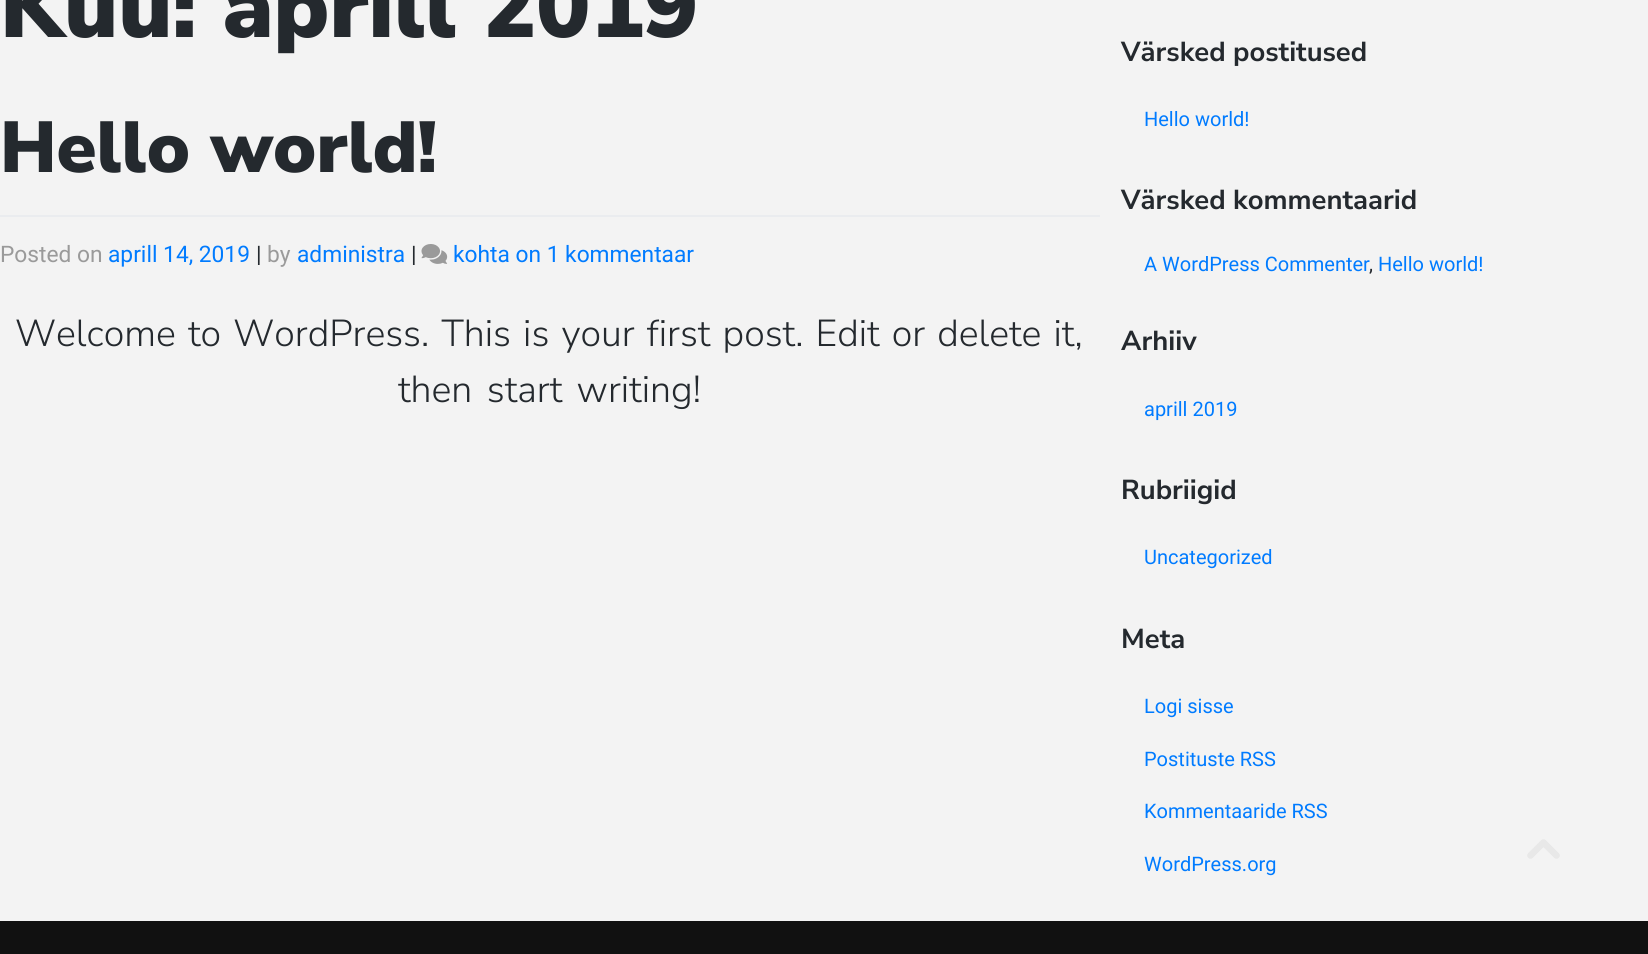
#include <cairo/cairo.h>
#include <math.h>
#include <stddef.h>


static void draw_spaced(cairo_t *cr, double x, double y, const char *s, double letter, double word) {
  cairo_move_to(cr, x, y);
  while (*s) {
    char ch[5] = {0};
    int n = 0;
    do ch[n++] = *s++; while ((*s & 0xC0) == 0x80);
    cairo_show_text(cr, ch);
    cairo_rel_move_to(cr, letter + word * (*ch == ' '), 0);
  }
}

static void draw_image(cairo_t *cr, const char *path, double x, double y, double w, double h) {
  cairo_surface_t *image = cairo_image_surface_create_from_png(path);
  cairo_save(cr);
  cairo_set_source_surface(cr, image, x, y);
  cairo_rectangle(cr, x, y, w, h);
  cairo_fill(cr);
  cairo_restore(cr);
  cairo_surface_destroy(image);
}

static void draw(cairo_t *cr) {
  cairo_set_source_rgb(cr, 243 / 255.0, 243 / 255.0, 243 / 255.0);
  cairo_paint(cr);
  cairo_set_source_rgb(cr, 234 / 255.0, 236 / 255.0, 239 / 255.0);
  cairo_rectangle(cr, 0, 215, 1100, 2);
  cairo_fill(cr);
  draw_image(cr, "images/1.png", 421, 244, 27, 20);
  cairo_set_source_rgb(cr, 17 / 255.0, 17 / 255.0, 17 / 255.0);
  cairo_rectangle(cr, 0, 921, 1648, 33);
  cairo_fill(cr);
  cairo_new_path(cr);
  cairo_move_to(cr, 1530.5, 855.5);
  cairo_line_to(cr, 1543.5, 842.5);
  cairo_line_to(cr, 1556.5, 855.5);
  cairo_set_source_rgb(cr, 232 / 255.0, 232 / 255.0, 232 / 255.0);
  cairo_set_line_width(cr, 6.6);
  cairo_set_line_cap(cr, CAIRO_LINE_CAP_ROUND);
  cairo_set_line_join(cr, CAIRO_LINE_JOIN_ROUND);
  cairo_stroke(cr);
  cairo_select_font_face(cr, "Nunito Sans Black", CAIRO_FONT_SLANT_NORMAL, CAIRO_FONT_WEIGHT_NORMAL);
  cairo_set_font_size(cr, 90);
  cairo_set_source_rgb(cr, 36 / 255.0, 41 / 255.0, 46 / 255.0);
  cairo_move_to(cr, 0, 37);
  cairo_show_text(cr, "Kuu: aprill 2019");
  cairo_set_font_size(cr, 72);
  cairo_move_to(cr, 0, 172);
  cairo_show_text(cr, "Hello world!");
  cairo_select_font_face(cr, "Roboto", CAIRO_FONT_SLANT_NORMAL, CAIRO_FONT_WEIGHT_NORMAL);
  cairo_set_font_size(cr, 22.75);
  cairo_set_source_rgb(cr, 154 / 255.0, 154 / 255.0, 154 / 255.0);
  cairo_move_to(cr, 0, 262);
  cairo_show_text(cr, "Posted on");
  cairo_set_source_rgb(cr, 0, 123 / 255.0, 1);
  cairo_move_to(cr, 108, 262);
  cairo_show_text(cr, "aprill 14, 2019");
  cairo_set_source_rgb(cr, 36 / 255.0, 41 / 255.0, 46 / 255.0);
  cairo_move_to(cr, 256, 262);
  cairo_show_text(cr, "|");
  cairo_set_source_rgb(cr, 154 / 255.0, 154 / 255.0, 154 / 255.0);
  cairo_move_to(cr, 267, 262);
  cairo_show_text(cr, "by");
  cairo_set_source_rgb(cr, 0, 123 / 255.0, 1);
  cairo_move_to(cr, 297, 262);
  cairo_show_text(cr, "administra");
  cairo_set_source_rgb(cr, 36 / 255.0, 41 / 255.0, 46 / 255.0);
  cairo_move_to(cr, 411, 262);
  cairo_show_text(cr, "|");
  cairo_set_source_rgb(cr, 0, 123 / 255.0, 1);
  cairo_move_to(cr, 453, 262);
  cairo_show_text(cr, "kohta on 1 kommentaar");
  cairo_select_font_face(cr, "Nunito Sans Light", CAIRO_FONT_SLANT_NORMAL, CAIRO_FONT_WEIGHT_NORMAL);
  cairo_set_font_size(cr, 37.5);
  cairo_set_source_rgb(cr, 36 / 255.0, 41 / 255.0, 46 / 255.0);
  draw_spaced(cr, 15, 346, "Welcome to WordPress. This is your first post. Edit or delete it,", 0, 2.75);
  draw_spaced(cr, 398, 402, "then start writing!", 0, 5);
  cairo_select_font_face(cr, "Nunito Sans", CAIRO_FONT_SLANT_NORMAL, CAIRO_FONT_WEIGHT_BOLD);
  cairo_set_font_size(cr, 27.4);
  cairo_move_to(cr, 1121, 61);
  cairo_show_text(cr, "Värsked postitused");
  cairo_select_font_face(cr, "Roboto", CAIRO_FONT_SLANT_NORMAL, CAIRO_FONT_WEIGHT_NORMAL);
  cairo_set_font_size(cr, 20);
  cairo_set_source_rgb(cr, 0, 123 / 255.0, 1);
  cairo_move_to(cr, 1144, 126);
  cairo_show_text(cr, "Hello world!");
  cairo_select_font_face(cr, "Nunito Sans", CAIRO_FONT_SLANT_NORMAL, CAIRO_FONT_WEIGHT_BOLD);
  cairo_set_font_size(cr, 27.4);
  cairo_set_source_rgb(cr, 36 / 255.0, 41 / 255.0, 46 / 255.0);
  cairo_move_to(cr, 1121, 209);
  cairo_show_text(cr, "Värsked kommentaarid");
  cairo_select_font_face(cr, "Roboto", CAIRO_FONT_SLANT_NORMAL, CAIRO_FONT_WEIGHT_NORMAL);
  cairo_set_font_size(cr, 20);
  cairo_set_source_rgb(cr, 0, 123 / 255.0, 1);
  cairo_move_to(cr, 1144, 271);
  cairo_show_text(cr, "A WordPress Commenter");
  cairo_set_source_rgb(cr, 36 / 255.0, 41 / 255.0, 46 / 255.0);
  cairo_move_to(cr, 1369, 271);
  cairo_show_text(cr, ",");
  cairo_set_source_rgb(cr, 0, 123 / 255.0, 1);
  cairo_move_to(cr, 1378, 271);
  cairo_show_text(cr, "Hello world!");
  cairo_select_font_face(cr, "Nunito Sans", CAIRO_FONT_SLANT_NORMAL, CAIRO_FONT_WEIGHT_BOLD);
  cairo_set_font_size(cr, 27.4);
  cairo_set_source_rgb(cr, 36 / 255.0, 41 / 255.0, 46 / 255.0);
  cairo_move_to(cr, 1121, 350);
  cairo_show_text(cr, "Arhiiv");
  cairo_select_font_face(cr, "Roboto", CAIRO_FONT_SLANT_NORMAL, CAIRO_FONT_WEIGHT_NORMAL);
  cairo_set_font_size(cr, 20);
  cairo_set_source_rgb(cr, 0, 123 / 255.0, 1);
  cairo_move_to(cr, 1144, 416);
  cairo_show_text(cr, "aprill 2019");
  cairo_select_font_face(cr, "Nunito Sans", CAIRO_FONT_SLANT_NORMAL, CAIRO_FONT_WEIGHT_BOLD);
  cairo_set_font_size(cr, 27.4);
  cairo_set_source_rgb(cr, 36 / 255.0, 41 / 255.0, 46 / 255.0);
  cairo_move_to(cr, 1121, 499);
  cairo_show_text(cr, "Rubriigid");
  cairo_select_font_face(cr, "Roboto", CAIRO_FONT_SLANT_NORMAL, CAIRO_FONT_WEIGHT_NORMAL);
  cairo_set_font_size(cr, 20);
  cairo_set_source_rgb(cr, 0, 123 / 255.0, 1);
  cairo_move_to(cr, 1144, 564);
  cairo_show_text(cr, "Uncategorized");
  cairo_select_font_face(cr, "Nunito Sans", CAIRO_FONT_SLANT_NORMAL, CAIRO_FONT_WEIGHT_BOLD);
  cairo_set_font_size(cr, 27.4);
  cairo_set_source_rgb(cr, 36 / 255.0, 41 / 255.0, 46 / 255.0);
  cairo_move_to(cr, 1121, 648);
  cairo_show_text(cr, "Meta");
  cairo_select_font_face(cr, "Roboto", CAIRO_FONT_SLANT_NORMAL, CAIRO_FONT_WEIGHT_NORMAL);
  cairo_set_font_size(cr, 20);
  cairo_set_source_rgb(cr, 0, 123 / 255.0, 1);
  cairo_move_to(cr, 1144, 713);
  cairo_show_text(cr, "Logi sisse");
  cairo_move_to(cr, 1144, 766);
  cairo_show_text(cr, "Postituste RSS");
  cairo_move_to(cr, 1144, 818);
  cairo_show_text(cr, "Kommentaaride RSS");
  cairo_move_to(cr, 1144, 871);
  cairo_show_text(cr, "WordPress.org");
}

int main(void) {
  cairo_surface_t *surface = cairo_image_surface_create(CAIRO_FORMAT_RGB24, 1648, 954);
  cairo_t *cr = cairo_create(surface);
  cairo_font_options_t *options = cairo_font_options_create();
  cairo_font_options_set_hint_metrics(options, CAIRO_HINT_METRICS_OFF);
  cairo_font_options_set_hint_style(options, CAIRO_HINT_STYLE_NONE);
  cairo_set_font_options(cr, options);
  cairo_set_miter_limit(cr, 4);
  draw(cr);
  cairo_surface_write_to_png(surface, "out.png");
  cairo_font_options_destroy(options);
  cairo_destroy(cr);
  cairo_surface_destroy(surface);
  return 0;
}
